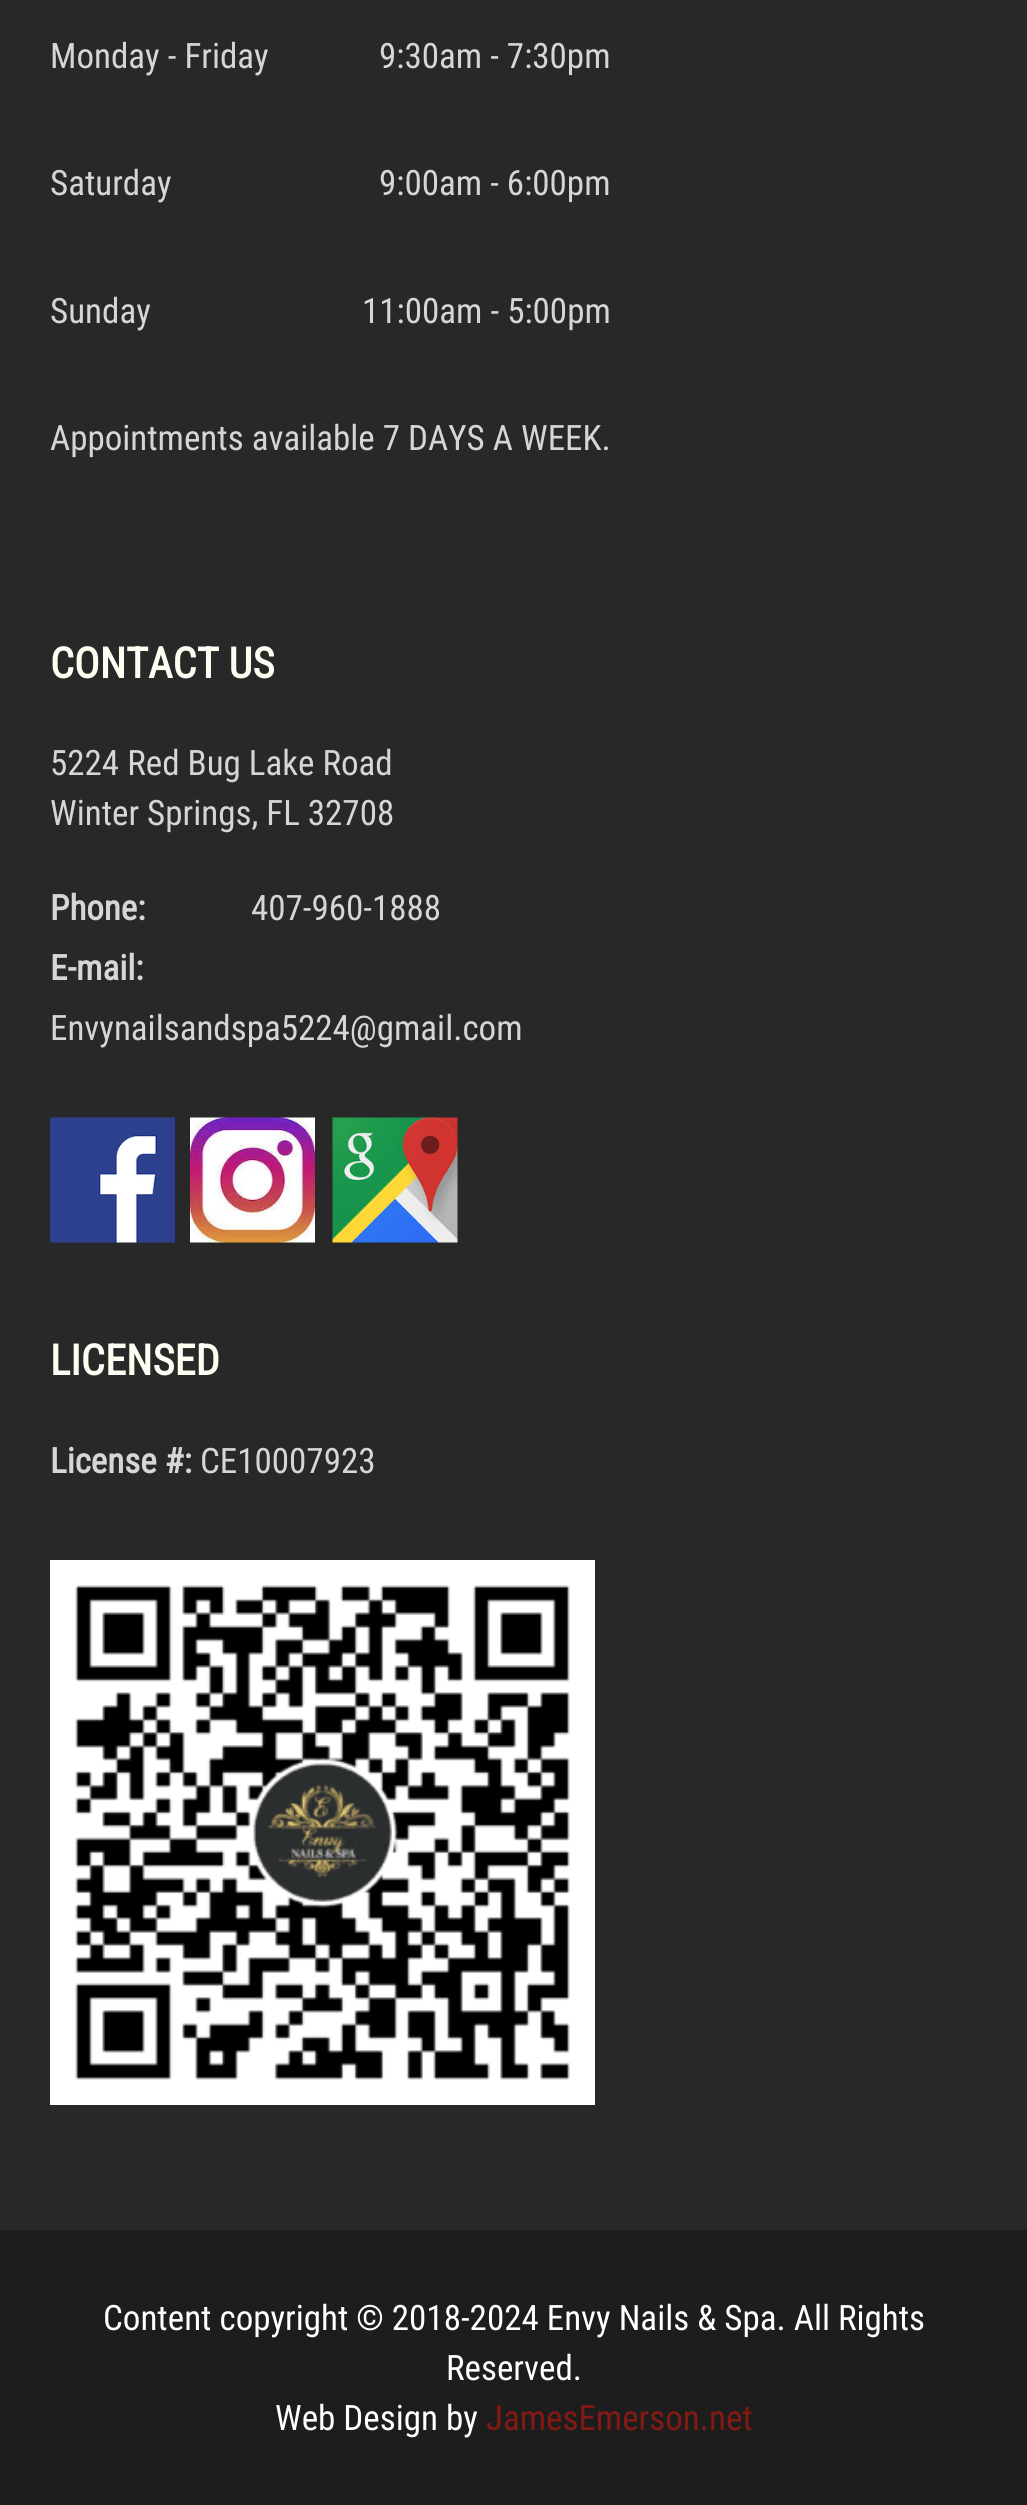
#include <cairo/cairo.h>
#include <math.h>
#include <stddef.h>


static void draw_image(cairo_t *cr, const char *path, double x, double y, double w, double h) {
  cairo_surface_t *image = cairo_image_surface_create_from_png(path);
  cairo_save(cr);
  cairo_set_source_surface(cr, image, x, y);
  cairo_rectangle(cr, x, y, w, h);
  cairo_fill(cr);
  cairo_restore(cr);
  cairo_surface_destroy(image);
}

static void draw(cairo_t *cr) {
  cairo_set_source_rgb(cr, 40 / 255.0, 40 / 255.0, 40 / 255.0);
  cairo_paint(cr);
  draw_image(cr, "images/1.png", 50, 1117, 125, 126);
  draw_image(cr, "images/2.png", 190, 1117, 125, 126);
  draw_image(cr, "images/3.png", 332, 1117, 126, 126);
  draw_image(cr, "images/4.png", 50, 1560, 545, 545);
  cairo_set_source_rgb(cr, 29 / 255.0, 29 / 255.0, 29 / 255.0);
  cairo_rectangle(cr, 0, 2230, 1027, 275);
  cairo_fill(cr);
  cairo_select_font_face(cr, "Roboto Condensed", CAIRO_FONT_SLANT_NORMAL, CAIRO_FONT_WEIGHT_NORMAL);
  cairo_set_font_size(cr, 35);
  cairo_set_source_rgb(cr, 214 / 255.0, 214 / 255.0, 214 / 255.0);
  cairo_move_to(cr, 50, 68);
  cairo_show_text(cr, "Monday - Friday");
  cairo_move_to(cr, 379, 68);
  cairo_show_text(cr, "9:30am - 7:30pm");
  cairo_move_to(cr, 50, 195);
  cairo_show_text(cr, "Saturday");
  cairo_move_to(cr, 379, 195);
  cairo_show_text(cr, "9:00am - 6:00pm");
  cairo_move_to(cr, 50, 323);
  cairo_show_text(cr, "Sunday");
  cairo_move_to(cr, 362, 323);
  cairo_show_text(cr, "11:00am - 5:00pm");
  cairo_move_to(cr, 50, 450);
  cairo_show_text(cr, "Appointments available 7 DAYS A WEEK.");
  cairo_select_font_face(cr, "Roboto Condensed", CAIRO_FONT_SLANT_NORMAL, CAIRO_FONT_WEIGHT_BOLD);
  cairo_set_font_size(cr, 42.5);
  cairo_set_source_rgb(cr, 253 / 255.0, 253 / 255.0, 241 / 255.0);
  cairo_move_to(cr, 50, 678);
  cairo_show_text(cr, "CONTACT US");
  cairo_select_font_face(cr, "Roboto Condensed", CAIRO_FONT_SLANT_NORMAL, CAIRO_FONT_WEIGHT_NORMAL);
  cairo_set_font_size(cr, 35);
  cairo_set_source_rgb(cr, 214 / 255.0, 214 / 255.0, 214 / 255.0);
  cairo_move_to(cr, 50, 775);
  cairo_show_text(cr, "5224 Red Bug Lake Road");
  cairo_move_to(cr, 50, 825);
  cairo_show_text(cr, "Winter Springs, FL 32708");
  cairo_select_font_face(cr, "Roboto Condensed", CAIRO_FONT_SLANT_NORMAL, CAIRO_FONT_WEIGHT_BOLD);
  cairo_move_to(cr, 50, 920);
  cairo_show_text(cr, "Phone:");
  cairo_select_font_face(cr, "Roboto Condensed", CAIRO_FONT_SLANT_NORMAL, CAIRO_FONT_WEIGHT_NORMAL);
  cairo_move_to(cr, 251, 920);
  cairo_show_text(cr, "407-960-1888");
  cairo_select_font_face(cr, "Roboto Condensed", CAIRO_FONT_SLANT_NORMAL, CAIRO_FONT_WEIGHT_BOLD);
  cairo_move_to(cr, 50, 980);
  cairo_show_text(cr, "E-mail:");
  cairo_select_font_face(cr, "Roboto Condensed", CAIRO_FONT_SLANT_NORMAL, CAIRO_FONT_WEIGHT_NORMAL);
  cairo_move_to(cr, 50, 1040);
  cairo_show_text(cr, "Envynailsandspa5224@gmail.com");
  cairo_select_font_face(cr, "Roboto Condensed", CAIRO_FONT_SLANT_NORMAL, CAIRO_FONT_WEIGHT_BOLD);
  cairo_set_font_size(cr, 42.5);
  cairo_set_source_rgb(cr, 253 / 255.0, 253 / 255.0, 241 / 255.0);
  cairo_move_to(cr, 50, 1375);
  cairo_show_text(cr, "LICENSED");
  cairo_set_font_size(cr, 35);
  cairo_set_source_rgb(cr, 214 / 255.0, 214 / 255.0, 214 / 255.0);
  cairo_move_to(cr, 50, 1473);
  cairo_show_text(cr, "License #:");
  cairo_select_font_face(cr, "Roboto Condensed", CAIRO_FONT_SLANT_NORMAL, CAIRO_FONT_WEIGHT_NORMAL);
  cairo_move_to(cr, 200, 1473);
  cairo_show_text(cr, "CE10007923");
  cairo_set_source_rgb(cr, 1, 1, 1);
  cairo_move_to(cr, 103, 2330);
  cairo_show_text(cr, "Content copyright © 2018-2024 Envy Nails & Spa. All Rights");
  cairo_move_to(cr, 446, 2380);
  cairo_show_text(cr, "Reserved.");
  cairo_move_to(cr, 275, 2430);
  cairo_show_text(cr, "Web Design by");
  cairo_set_source_rgb(cr, 131 / 255.0, 25 / 255.0, 19 / 255.0);
  cairo_move_to(cr, 486, 2430);
  cairo_show_text(cr, "JamesEmerson.net");
}

int main(void) {
  cairo_surface_t *surface = cairo_image_surface_create(CAIRO_FORMAT_RGB24, 1027, 2505);
  cairo_t *cr = cairo_create(surface);
  cairo_font_options_t *options = cairo_font_options_create();
  cairo_font_options_set_hint_metrics(options, CAIRO_HINT_METRICS_OFF);
  cairo_font_options_set_hint_style(options, CAIRO_HINT_STYLE_NONE);
  cairo_set_font_options(cr, options);
  cairo_set_miter_limit(cr, 4);
  draw(cr);
  cairo_surface_write_to_png(surface, "out.png");
  cairo_font_options_destroy(options);
  cairo_destroy(cr);
  cairo_surface_destroy(surface);
  return 0;
}
